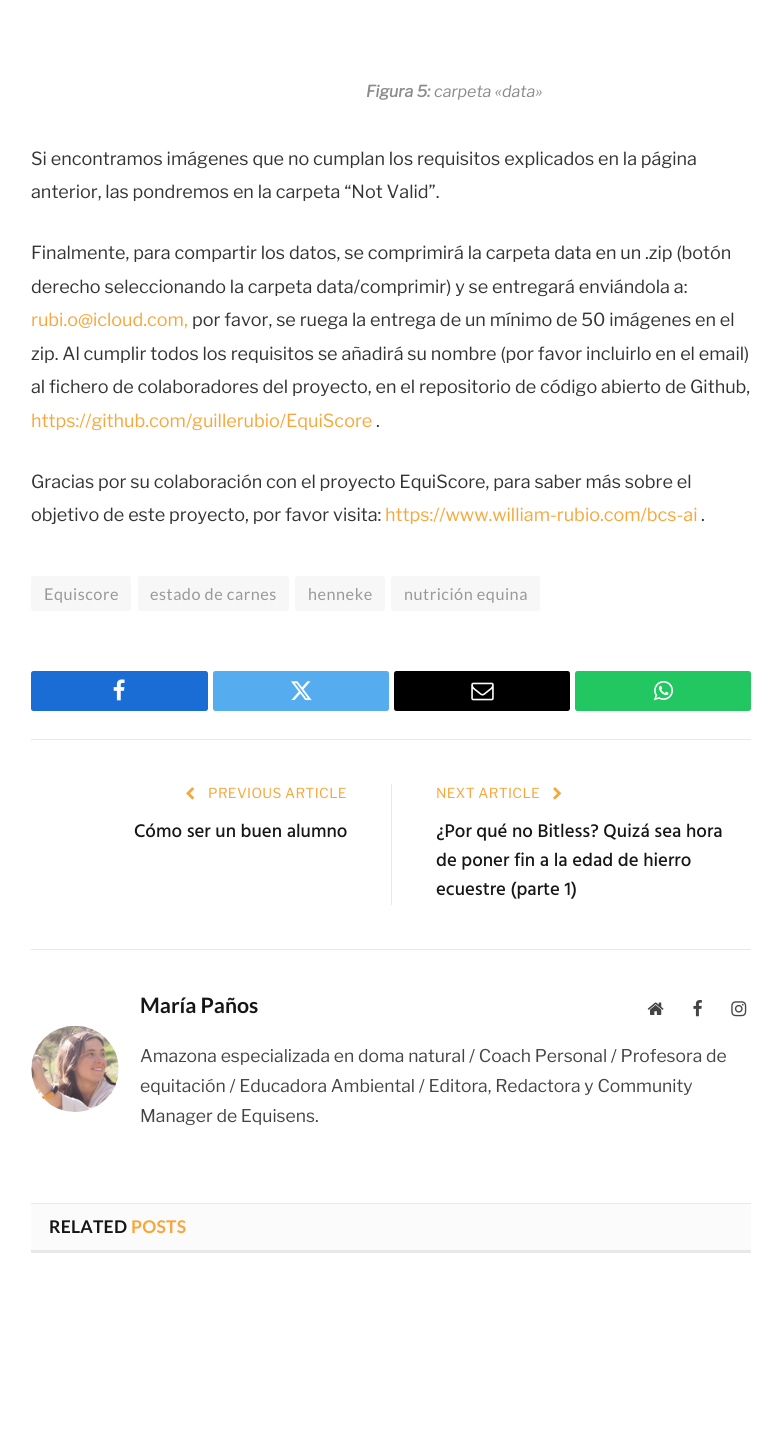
#include <cairo/cairo.h>
#include <math.h>
#include <stddef.h>


static void draw_spaced(cairo_t *cr, double x, double y, const char *s, double letter, double word) {
  cairo_move_to(cr, x, y);
  while (*s) {
    char ch[5] = {0};
    int n = 0;
    do ch[n++] = *s++; while ((*s & 0xC0) == 0x80);
    cairo_show_text(cr, ch);
    cairo_rel_move_to(cr, letter + word * (*ch == ' '), 0);
  }
}

static void rounded_rect(cairo_t *cr, double x, double y, double w, double h, double r) {
  cairo_new_sub_path(cr);
  cairo_arc(cr, x + w - r, y + h - r, r, 0, M_PI / 2);
  cairo_arc(cr, x + r, y + h - r, r, M_PI / 2, M_PI);
  cairo_arc(cr, x + r, y + r, r, M_PI, 1.5 * M_PI);
  cairo_arc(cr, x + w - r, y + r, r, 1.5 * M_PI, 2 * M_PI);
  cairo_close_path(cr);
}

static void draw_image(cairo_t *cr, const char *path, double x, double y, double w, double h) {
  cairo_surface_t *image = cairo_image_surface_create_from_png(path);
  cairo_save(cr);
  cairo_set_source_surface(cr, image, x, y);
  cairo_rectangle(cr, x, y, w, h);
  cairo_fill(cr);
  cairo_restore(cr);
  cairo_surface_destroy(image);
}

static void draw(cairo_t *cr) {
  cairo_set_source_rgb(cr, 1, 1, 1);
  cairo_paint(cr);
  cairo_set_source_rgb(cr, 247 / 255.0, 247 / 255.0, 247 / 255.0);
  rounded_rect(cr, 31, 576, 100, 35, 2.5);
  cairo_fill(cr);
  rounded_rect(cr, 138, 576, 151, 35, 2.5);
  cairo_fill(cr);
  rounded_rect(cr, 295, 576, 90, 35, 2.5);
  cairo_fill(cr);
  rounded_rect(cr, 391, 576, 149, 35, 2.5);
  cairo_fill(cr);
  cairo_set_source_rgb(cr, 26 / 255.0, 109 / 255.0, 212 / 255.0);
  rounded_rect(cr, 31, 671, 177, 40, 2.5);
  cairo_fill(cr);
  draw_image(cr, "images/1.png", 113, 679, 12, 22);
  cairo_set_source_rgb(cr, 85 / 255.0, 172 / 255.0, 239 / 255.0);
  rounded_rect(cr, 213, 671, 176, 40, 2.5);
  cairo_fill(cr);
  draw_image(cr, "images/2.png", 291, 681, 21, 20);
  cairo_set_source_rgb(cr, 0, 0, 0);
  rounded_rect(cr, 394, 671, 176, 40, 2.5);
  cairo_fill(cr);
  draw_image(cr, "images/3.png", 471, 682, 23, 19);
  cairo_set_source_rgb(cr, 35 / 255.0, 199 / 255.0, 97 / 255.0);
  rounded_rect(cr, 575, 671, 176, 40, 2.5);
  cairo_fill(cr);
  draw_image(cr, "images/4.png", 653, 681, 20, 20);
  cairo_set_source_rgb(cr, 232 / 255.0, 232 / 255.0, 232 / 255.0);
  cairo_rectangle(cr, 31, 739, 720, 1);
  cairo_fill(cr);
  draw_image(cr, "images/5.png", 186, 787, 9, 13);
  cairo_rectangle(cr, 391, 784, 1, 121);
  cairo_fill(cr);
  draw_image(cr, "images/6.png", 553, 787, 9, 13);
  cairo_rectangle(cr, 31, 949, 720, 1);
  cairo_fill(cr);
  draw_image(cr, "images/7.png", 31, 1025, 88, 87);
  draw_image(cr, "images/8.png", 647, 1002, 17, 13);
  draw_image(cr, "images/9.png", 693, 1000, 9, 17);
  draw_image(cr, "images/10.png", 731, 1001, 16, 16);
  cairo_set_source_rgb(cr, 251 / 255.0, 251 / 255.0, 251 / 255.0);
  cairo_rectangle(cr, 31, 1204, 720, 46);
  cairo_fill(cr);
  cairo_set_source_rgb(cr, 232 / 255.0, 232 / 255.0, 232 / 255.0);
  cairo_rectangle(cr, 31, 1203, 720, 1);
  cairo_fill(cr);
  cairo_rectangle(cr, 31, 1250, 720, 3);
  cairo_fill(cr);
  cairo_select_font_face(cr, "Libre Franklin", CAIRO_FONT_SLANT_ITALIC, CAIRO_FONT_WEIGHT_BOLD);
  cairo_set_font_size(cr, 16);
  cairo_set_source_rgb(cr, 138 / 255.0, 138 / 255.0, 138 / 255.0);
  cairo_move_to(cr, 366, 97);
  cairo_show_text(cr, "Figura 5:");
  cairo_select_font_face(cr, "Libre Franklin Thin", CAIRO_FONT_SLANT_ITALIC, CAIRO_FONT_WEIGHT_NORMAL);
  cairo_move_to(cr, 434, 97);
  cairo_show_text(cr, "carpeta «data»");
  cairo_select_font_face(cr, "Libre Franklin", CAIRO_FONT_SLANT_NORMAL, CAIRO_FONT_WEIGHT_NORMAL);
  cairo_set_font_size(cr, 18);
  cairo_set_source_rgb(cr, 51 / 255.0, 51 / 255.0, 51 / 255.0);
  cairo_move_to(cr, 31, 165);
  cairo_show_text(cr, "Si encontramos imágenes que no cumplan los requisitos explicados en la página");
  cairo_move_to(cr, 31, 198);
  cairo_show_text(cr, "anterior, las pondremos en la carpeta “Not Valid”.");
  cairo_move_to(cr, 31, 259);
  cairo_show_text(cr, "Finalmente, para compartir los datos, se comprimirá la carpeta data en un .zip (botón");
  cairo_move_to(cr, 31, 293);
  cairo_show_text(cr, "derecho seleccionando la carpeta data/comprimir) y se entregará enviándola a:");
  cairo_set_source_rgb(cr, 249 / 255.0, 166 / 255.0, 57 / 255.0);
  cairo_move_to(cr, 31, 326);
  cairo_show_text(cr, "rubi.o@icloud.com,");
  cairo_set_source_rgb(cr, 51 / 255.0, 51 / 255.0, 51 / 255.0);
  cairo_move_to(cr, 192, 326);
  cairo_show_text(cr, "por favor, se ruega la entrega de un mínimo de 50 imágenes en el");
  cairo_move_to(cr, 31, 360);
  cairo_show_text(cr, "zip. Al cumplir todos los requisitos se añadirá su nombre (por favor incluirlo en el email)");
  cairo_move_to(cr, 31, 393);
  cairo_show_text(cr, "al fichero de colaboradores del proyecto, en el repositorio de código abierto de Github,");
  cairo_set_source_rgb(cr, 249 / 255.0, 166 / 255.0, 57 / 255.0);
  cairo_move_to(cr, 31, 427);
  cairo_show_text(cr, "https://github.com/guillerubio/EquiScore");
  cairo_set_source_rgb(cr, 51 / 255.0, 51 / 255.0, 51 / 255.0);
  cairo_move_to(cr, 376, 427);
  cairo_show_text(cr, ".");
  cairo_move_to(cr, 31, 488);
  cairo_show_text(cr, "Gracias por su colaboración con el proyecto EquiScore, para saber más sobre el");
  cairo_move_to(cr, 31, 521);
  cairo_show_text(cr, "objetivo de este proyecto, por favor visita:");
  cairo_set_source_rgb(cr, 249 / 255.0, 166 / 255.0, 57 / 255.0);
  cairo_move_to(cr, 385, 521);
  cairo_show_text(cr, "https://www.william-rubio.com/bcs-ai");
  cairo_set_source_rgb(cr, 51 / 255.0, 51 / 255.0, 51 / 255.0);
  cairo_move_to(cr, 701, 521);
  cairo_show_text(cr, ".");
  cairo_select_font_face(cr, "Lato", CAIRO_FONT_SLANT_NORMAL, CAIRO_FONT_WEIGHT_NORMAL);
  cairo_set_font_size(cr, 16.25);
  cairo_set_source_rgb(cr, 153 / 255.0, 153 / 255.0, 153 / 255.0);
  draw_spaced(cr, 44, 600, "Equiscore", 0.5, 0);
  draw_spaced(cr, 150, 600, "estado de carnes", 0.5, 0);
  draw_spaced(cr, 308, 600, "henneke", 0.5, 0);
  draw_spaced(cr, 404, 600, "nutrición equina", 0.5, 0);
  cairo_select_font_face(cr, "Libre Franklin", CAIRO_FONT_SLANT_NORMAL, CAIRO_FONT_WEIGHT_NORMAL);
  cairo_set_font_size(cr, 13.75);
  cairo_set_source_rgb(cr, 249 / 255.0, 166 / 255.0, 57 / 255.0);
  draw_spaced(cr, 208, 798, "PREVIOUS ARTICLE", 0.4, 0);
  cairo_select_font_face(cr, "Hind Medium", CAIRO_FONT_SLANT_NORMAL, CAIRO_FONT_WEIGHT_NORMAL);
  cairo_set_font_size(cr, 18.75);
  cairo_set_source_rgb(cr, 22 / 255.0, 22 / 255.0, 22 / 255.0);
  cairo_move_to(cr, 134, 837);
  cairo_show_text(cr, "Cómo ser un buen alumno");
  cairo_select_font_face(cr, "Libre Franklin", CAIRO_FONT_SLANT_NORMAL, CAIRO_FONT_WEIGHT_NORMAL);
  cairo_set_font_size(cr, 13.75);
  cairo_set_source_rgb(cr, 249 / 255.0, 166 / 255.0, 57 / 255.0);
  draw_spaced(cr, 436, 798, "NEXT ARTICLE", 0.4, 0);
  cairo_select_font_face(cr, "Hind Medium", CAIRO_FONT_SLANT_NORMAL, CAIRO_FONT_WEIGHT_NORMAL);
  cairo_set_font_size(cr, 18.75);
  cairo_set_source_rgb(cr, 22 / 255.0, 22 / 255.0, 22 / 255.0);
  cairo_move_to(cr, 436, 837);
  cairo_show_text(cr, "¿Por qué no Bitless? Quizá sea hora");
  cairo_move_to(cr, 436, 866);
  cairo_show_text(cr, "de poner fin a la edad de hierro");
  cairo_move_to(cr, 436, 895);
  cairo_show_text(cr, "ecuestre (parte 1)");
  cairo_select_font_face(cr, "Lato", CAIRO_FONT_SLANT_NORMAL, CAIRO_FONT_WEIGHT_BOLD);
  cairo_set_font_size(cr, 21.25);
  cairo_move_to(cr, 140, 1013);
  cairo_show_text(cr, "María Paños");
  cairo_select_font_face(cr, "Libre Franklin", CAIRO_FONT_SLANT_NORMAL, CAIRO_FONT_WEIGHT_NORMAL);
  cairo_set_font_size(cr, 17.5);
  cairo_set_source_rgb(cr, 68 / 255.0, 68 / 255.0, 68 / 255.0);
  cairo_move_to(cr, 140, 1062);
  cairo_show_text(cr, "Amazona especializada en doma natural / Coach Personal / Profesora de");
  cairo_move_to(cr, 140, 1092);
  cairo_show_text(cr, "equitación / Educadora Ambiental / Editora, Redactora y Community");
  cairo_move_to(cr, 140, 1122);
  cairo_show_text(cr, "Manager de Equisens.");
  cairo_select_font_face(cr, "Lato", CAIRO_FONT_SLANT_NORMAL, CAIRO_FONT_WEIGHT_BOLD);
  cairo_set_source_rgb(cr, 22 / 255.0, 22 / 255.0, 22 / 255.0);
  draw_spaced(cr, 49, 1233, "RELATED", 0.25, 0);
  cairo_set_source_rgb(cr, 249 / 255.0, 166 / 255.0, 57 / 255.0);
  draw_spaced(cr, 131, 1233, "POSTS", 0.25, 0);
}

int main(void) {
  cairo_surface_t *surface = cairo_image_surface_create(CAIRO_FORMAT_RGB24, 782, 1444);
  cairo_t *cr = cairo_create(surface);
  cairo_font_options_t *options = cairo_font_options_create();
  cairo_font_options_set_hint_metrics(options, CAIRO_HINT_METRICS_OFF);
  cairo_font_options_set_hint_style(options, CAIRO_HINT_STYLE_NONE);
  cairo_set_font_options(cr, options);
  cairo_set_miter_limit(cr, 4);
  draw(cr);
  cairo_surface_write_to_png(surface, "out.png");
  cairo_font_options_destroy(options);
  cairo_destroy(cr);
  cairo_surface_destroy(surface);
  return 0;
}
